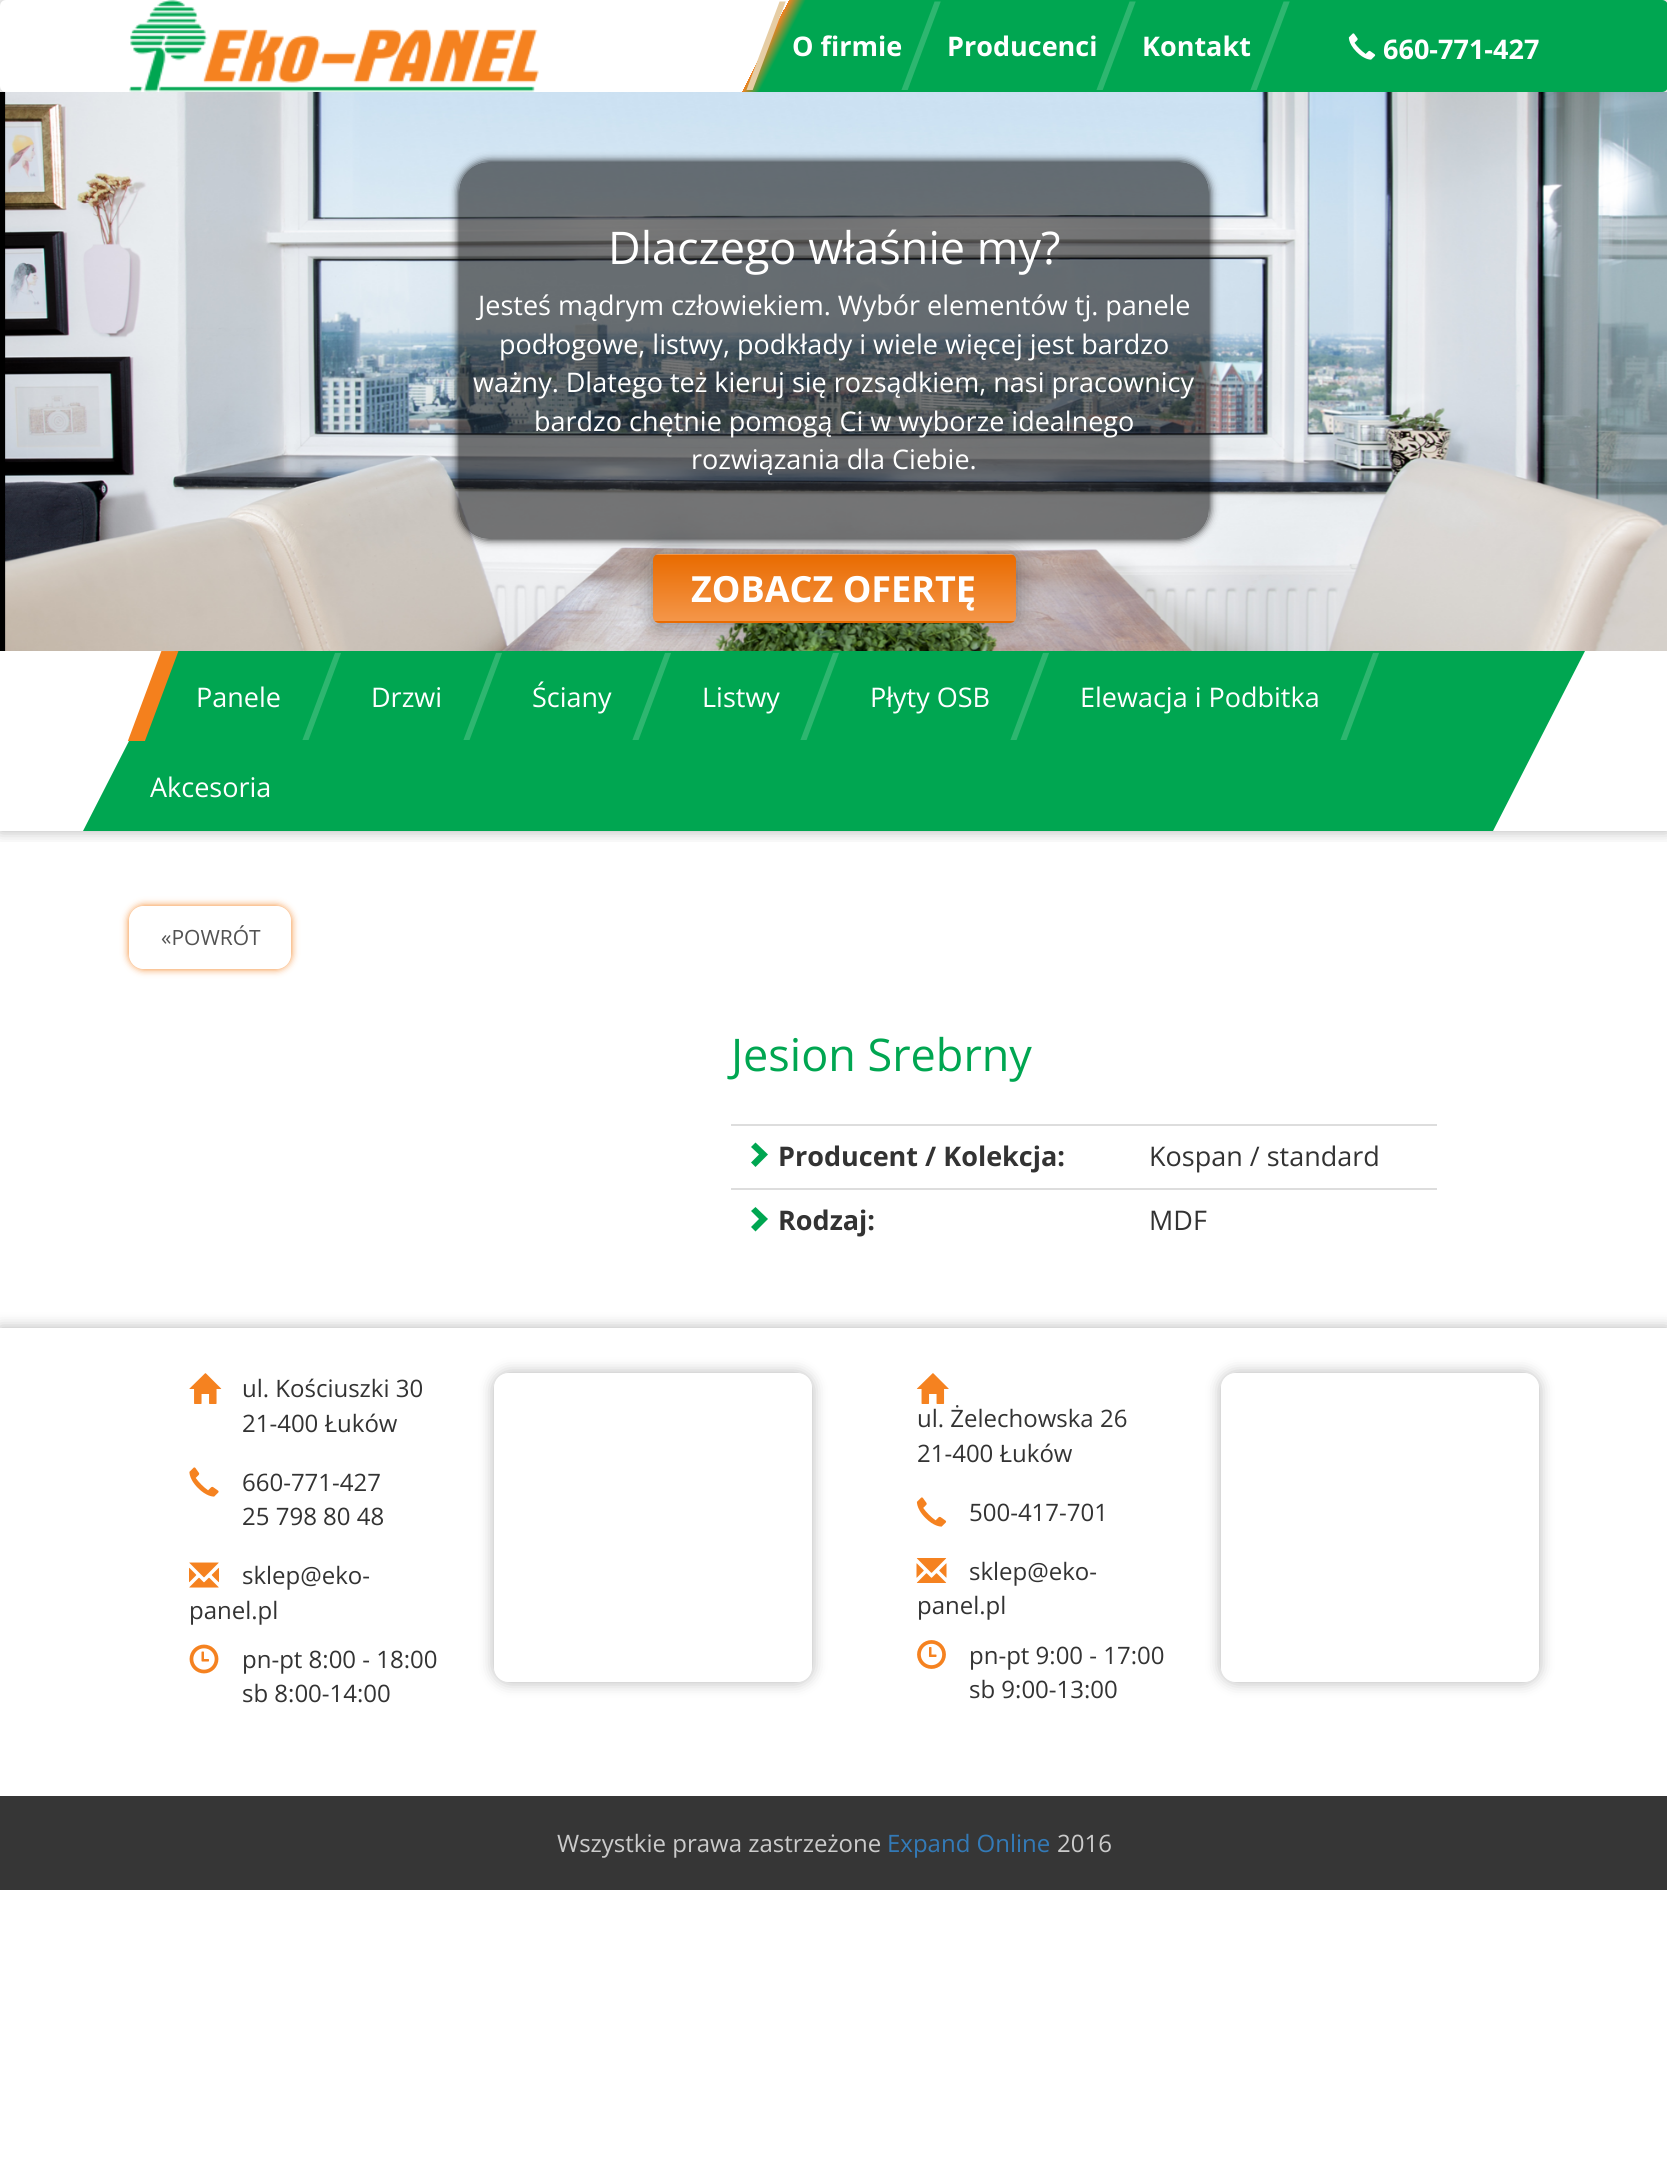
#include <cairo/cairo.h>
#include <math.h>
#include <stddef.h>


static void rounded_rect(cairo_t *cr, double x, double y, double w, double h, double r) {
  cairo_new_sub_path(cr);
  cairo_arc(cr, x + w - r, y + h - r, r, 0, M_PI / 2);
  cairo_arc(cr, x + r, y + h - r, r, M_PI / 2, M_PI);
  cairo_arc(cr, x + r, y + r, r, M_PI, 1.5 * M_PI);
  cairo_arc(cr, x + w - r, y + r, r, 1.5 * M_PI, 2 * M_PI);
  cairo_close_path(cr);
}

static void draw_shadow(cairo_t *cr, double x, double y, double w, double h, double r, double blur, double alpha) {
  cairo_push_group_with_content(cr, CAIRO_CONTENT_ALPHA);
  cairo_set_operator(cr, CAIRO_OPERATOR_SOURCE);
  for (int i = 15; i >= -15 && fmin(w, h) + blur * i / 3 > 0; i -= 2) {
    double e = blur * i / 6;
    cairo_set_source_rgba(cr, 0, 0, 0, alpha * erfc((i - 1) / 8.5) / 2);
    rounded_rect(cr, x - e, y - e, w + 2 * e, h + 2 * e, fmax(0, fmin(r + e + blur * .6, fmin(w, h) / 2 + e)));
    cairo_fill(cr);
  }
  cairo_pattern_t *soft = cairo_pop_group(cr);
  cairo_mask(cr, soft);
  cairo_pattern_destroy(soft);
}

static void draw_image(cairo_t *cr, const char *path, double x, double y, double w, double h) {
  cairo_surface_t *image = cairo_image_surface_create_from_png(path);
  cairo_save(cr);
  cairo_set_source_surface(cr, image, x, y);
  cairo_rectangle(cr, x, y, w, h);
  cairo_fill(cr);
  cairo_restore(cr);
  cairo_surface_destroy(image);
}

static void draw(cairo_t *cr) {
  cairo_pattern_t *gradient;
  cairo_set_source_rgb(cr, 1, 1, 1);
  cairo_paint(cr);
  cairo_set_source_rgb(cr, 0, 0, 0);
  draw_shadow(cr, 0, 0, 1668, 92, 6, 7.5, 0.3);
  gradient = cairo_pattern_create_linear(153, -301, 1515, 393);
  cairo_pattern_add_color_stop_rgba(gradient, 0, 1, 1, 1, 1);
  cairo_pattern_add_color_stop_rgba(gradient, 0.46, 1, 1, 1, 1);
  cairo_pattern_add_color_stop_rgba(gradient, 0.46, 245 / 255.0, 130 / 255.0, 32 / 255.0, 1);
  cairo_pattern_add_color_stop_rgba(gradient, 0.47, 0, 166 / 255.0, 81 / 255.0, 1);
  cairo_pattern_add_color_stop_rgba(gradient, 1, 0, 166 / 255.0, 81 / 255.0, 1);
  cairo_set_source(cr, gradient);
  cairo_pattern_destroy(gradient);
  rounded_rect(cr, 0, 0, 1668, 92, 6);
  cairo_fill(cr);
  draw_image(cr, "images/1.png", 129, 0, 410, 92);
  draw_image(cr, "images/2.png", 1348, 33, 28, 27);
  cairo_save(cr);
  cairo_rectangle(cr, 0, 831, 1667, 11);
  cairo_clip(cr);
  cairo_set_source_rgb(cr, 0, 0, 0);
  draw_shadow(cr, 0, 651, 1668, 180, 0, 7.5, 0.3);
  cairo_restore(cr);
  draw_image(cr, "images/3.png", 0, 92, 1667, 559);
  cairo_save(cr);
  cairo_set_fill_rule(cr, CAIRO_FILL_RULE_EVEN_ODD);
  cairo_new_path(cr);
  cairo_move_to(cr, 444, 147);
  cairo_line_to(cr, 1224, 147);
  cairo_line_to(cr, 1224, 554);
  cairo_line_to(cr, 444, 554);
  cairo_close_path(cr);
  cairo_move_to(cr, 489, 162);
  cairo_line_to(cr, 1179, 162);
  cairo_curve_to(cr, 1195.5, 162, 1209, 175.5, 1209, 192);
  cairo_line_to(cr, 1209, 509);
  cairo_curve_to(cr, 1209, 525.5, 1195.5, 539, 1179, 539);
  cairo_line_to(cr, 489, 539);
  cairo_curve_to(cr, 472.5, 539, 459, 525.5, 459, 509);
  cairo_line_to(cr, 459, 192);
  cairo_curve_to(cr, 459, 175.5, 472.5, 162, 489, 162);
  cairo_close_path(cr);
  cairo_clip(cr);
  cairo_set_source_rgb(cr, 0, 0, 0);
  draw_shadow(cr, 459, 162, 750, 377, 30, 4.5, 1);
  cairo_restore(cr);
  cairo_set_source_rgb(cr, 0, 0, 0);
  draw_shadow(cr, 653, 554, 363, 69, 6, 11, 0.35);
  cairo_set_source_rgba(cr, 0, 0, 0, 0.53);
  rounded_rect(cr, 459, 162, 750, 377, 30);
  cairo_fill(cr);
  cairo_save(cr);
  rounded_rect(cr, 653, 554, 363, 69, 6);
  cairo_clip(cr);
  gradient = cairo_pattern_create_linear(834, 489, 834, 555);
  cairo_pattern_add_color_stop_rgba(gradient, 0, 233 / 255.0, 107 / 255.0, 0, 1);
  cairo_pattern_add_color_stop_rgba(gradient, 1, 244 / 255.0, 150 / 255.0, 73 / 255.0, 1);
  cairo_set_source(cr, gradient);
  cairo_pattern_destroy(gradient);
  cairo_rectangle(cr, 653, 554, 363, 1);
  cairo_fill(cr);
  gradient = cairo_pattern_create_linear(834, 555, 834, 621);
  cairo_pattern_add_color_stop_rgba(gradient, 0, 233 / 255.0, 107 / 255.0, 0, 1);
  cairo_pattern_add_color_stop_rgba(gradient, 1, 244 / 255.0, 150 / 255.0, 73 / 255.0, 1);
  cairo_set_source(cr, gradient);
  cairo_pattern_destroy(gradient);
  cairo_rectangle(cr, 653, 555, 363, 66);
  cairo_fill(cr);
  gradient = cairo_pattern_create_linear(834, 621, 834, 687);
  cairo_pattern_add_color_stop_rgba(gradient, 0, 233 / 255.0, 107 / 255.0, 0, 1);
  cairo_pattern_add_color_stop_rgba(gradient, 1, 244 / 255.0, 150 / 255.0, 73 / 255.0, 1);
  cairo_set_source(cr, gradient);
  cairo_pattern_destroy(gradient);
  cairo_rectangle(cr, 653, 621, 363, 2);
  cairo_fill(cr);
  cairo_restore(cr);
  cairo_set_source_rgb(cr, 0, 166 / 255.0, 81 / 255.0);
  cairo_new_path(cr);
  cairo_move_to(cr, 175, 651);
  cairo_line_to(cr, 1585, 651);
  cairo_line_to(cr, 1493, 831);
  cairo_line_to(cr, 83, 831);
  cairo_close_path(cr);
  cairo_fill(cr);
  cairo_save(cr);
  cairo_set_fill_rule(cr, CAIRO_FILL_RULE_EVEN_ODD);
  cairo_new_path(cr);
  cairo_move_to(cr, 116, 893);
  cairo_line_to(cr, 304, 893);
  cairo_line_to(cr, 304, 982);
  cairo_line_to(cr, 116, 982);
  cairo_close_path(cr);
  cairo_move_to(cr, 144, 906);
  cairo_line_to(cr, 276, 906);
  cairo_curve_to(cr, 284.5, 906, 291, 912.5, 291, 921);
  cairo_line_to(cr, 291, 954);
  cairo_curve_to(cr, 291, 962.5, 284.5, 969, 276, 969);
  cairo_line_to(cr, 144, 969);
  cairo_curve_to(cr, 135.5, 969, 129, 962.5, 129, 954);
  cairo_line_to(cr, 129, 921);
  cairo_curve_to(cr, 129, 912.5, 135.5, 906, 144, 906);
  cairo_close_path(cr);
  cairo_clip(cr);
  cairo_set_source_rgb(cr, 245 / 255.0, 130 / 255.0, 32 / 255.0);
  draw_shadow(cr, 129, 906, 162, 63, 15, 4, 1);
  cairo_restore(cr);
  cairo_new_path(cr);
  cairo_move_to(cr, 768, 1154.5);
  cairo_line_to(cr, 755.5, 1167);
  cairo_line_to(cr, 751, 1162.5);
  cairo_line_to(cr, 759, 1154.5);
  cairo_line_to(cr, 751, 1147);
  cairo_line_to(cr, 755.5, 1142.5);
  cairo_close_path(cr);
  cairo_fill(cr);
  cairo_set_source_rgb(cr, 221 / 255.0, 221 / 255.0, 221 / 255.0);
  cairo_rectangle(cr, 731, 1124, 706, 2);
  cairo_fill(cr);
  cairo_set_source_rgb(cr, 0, 166 / 255.0, 81 / 255.0);
  cairo_new_path(cr);
  cairo_move_to(cr, 768, 1219);
  cairo_line_to(cr, 755.5, 1231.5);
  cairo_line_to(cr, 751, 1227);
  cairo_line_to(cr, 759, 1219);
  cairo_line_to(cr, 751, 1211);
  cairo_line_to(cr, 755.5, 1207);
  cairo_close_path(cr);
  cairo_fill(cr);
  cairo_set_source_rgb(cr, 221 / 255.0, 221 / 255.0, 221 / 255.0);
  cairo_rectangle(cr, 731, 1188, 706, 2);
  cairo_fill(cr);
  cairo_save(cr);
  cairo_set_fill_rule(cr, CAIRO_FILL_RULE_EVEN_ODD);
  cairo_new_path(cr);
  cairo_move_to(cr, 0, 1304);
  cairo_line_to(cr, 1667, 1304);
  cairo_line_to(cr, 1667, 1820);
  cairo_line_to(cr, 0, 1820);
  cairo_close_path(cr);
  cairo_move_to(cr, 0, 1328);
  cairo_line_to(cr, 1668, 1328);
  cairo_line_to(cr, 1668, 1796);
  cairo_line_to(cr, 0, 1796);
  cairo_close_path(cr);
  cairo_clip(cr);
  cairo_set_source_rgb(cr, 0, 0, 0);
  draw_shadow(cr, 0, 1328, 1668, 468, 0, 7.5, 0.3);
  cairo_restore(cr);
  draw_image(cr, "images/4.png", 189, 1373, 33, 31);
  draw_image(cr, "images/5.png", 189, 1467, 30, 30);
  draw_image(cr, "images/6.png", 189, 1562, 30, 26);
  draw_image(cr, "images/7.png", 189, 1644, 30, 30);
  cairo_save(cr);
  cairo_set_fill_rule(cr, CAIRO_FILL_RULE_EVEN_ODD);
  cairo_new_path(cr);
  cairo_move_to(cr, 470, 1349);
  cairo_line_to(cr, 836, 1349);
  cairo_line_to(cr, 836, 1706);
  cairo_line_to(cr, 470, 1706);
  cairo_close_path(cr);
  cairo_move_to(cr, 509, 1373);
  cairo_line_to(cr, 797, 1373);
  cairo_curve_to(cr, 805.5, 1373, 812, 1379.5, 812, 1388);
  cairo_line_to(cr, 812, 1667);
  cairo_curve_to(cr, 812, 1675.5, 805.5, 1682, 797, 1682);
  cairo_line_to(cr, 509, 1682);
  cairo_curve_to(cr, 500.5, 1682, 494, 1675.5, 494, 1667);
  cairo_line_to(cr, 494, 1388);
  cairo_curve_to(cr, 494, 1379.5, 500.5, 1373, 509, 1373);
  cairo_close_path(cr);
  cairo_clip(cr);
  cairo_set_source_rgb(cr, 0, 0, 0);
  draw_shadow(cr, 494, 1373, 318, 309, 15, 7.5, 0.3);
  cairo_restore(cr);
  draw_image(cr, "images/8.png", 916, 1373, 33, 31);
  draw_image(cr, "images/9.png", 916, 1497, 31, 30);
  draw_image(cr, "images/10.png", 916, 1558, 31, 25);
  draw_image(cr, "images/11.png", 917, 1640, 29, 29);
  cairo_save(cr);
  cairo_set_fill_rule(cr, CAIRO_FILL_RULE_EVEN_ODD);
  cairo_new_path(cr);
  cairo_move_to(cr, 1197, 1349);
  cairo_line_to(cr, 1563, 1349);
  cairo_line_to(cr, 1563, 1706);
  cairo_line_to(cr, 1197, 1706);
  cairo_close_path(cr);
  cairo_move_to(cr, 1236, 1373);
  cairo_line_to(cr, 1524, 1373);
  cairo_curve_to(cr, 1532.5, 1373, 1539, 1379.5, 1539, 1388);
  cairo_line_to(cr, 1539, 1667);
  cairo_curve_to(cr, 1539, 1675.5, 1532.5, 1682, 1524, 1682);
  cairo_line_to(cr, 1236, 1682);
  cairo_curve_to(cr, 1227.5, 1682, 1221, 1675.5, 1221, 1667);
  cairo_line_to(cr, 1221, 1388);
  cairo_curve_to(cr, 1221, 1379.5, 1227.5, 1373, 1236, 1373);
  cairo_close_path(cr);
  cairo_clip(cr);
  cairo_set_source_rgb(cr, 0, 0, 0);
  draw_shadow(cr, 1221, 1373, 318, 309, 15, 7.5, 0.3);
  cairo_restore(cr);
  cairo_set_source_rgb(cr, 54 / 255.0, 54 / 255.0, 54 / 255.0);
  cairo_rectangle(cr, 0, 1796, 1667, 94);
  cairo_fill(cr);
  cairo_select_font_face(cr, "Open Sans Light", CAIRO_FONT_SLANT_NORMAL, CAIRO_FONT_WEIGHT_NORMAL);
  cairo_set_font_size(cr, 124);
  cairo_set_source_rgb(cr, 230 / 255.0, 205 / 255.0, 164 / 255.0);
  cairo_move_to(cr, 745, 90);
  cairo_show_text(cr, "/");
  cairo_select_font_face(cr, "Open Sans", CAIRO_FONT_SLANT_NORMAL, CAIRO_FONT_WEIGHT_BOLD);
  cairo_set_font_size(cr, 27);
  cairo_set_source_rgb(cr, 1, 1, 1);
  cairo_move_to(cr, 792, 56);
  cairo_show_text(cr, "O firmie");
  cairo_select_font_face(cr, "Open Sans Light", CAIRO_FONT_SLANT_NORMAL, CAIRO_FONT_WEIGHT_NORMAL);
  cairo_set_font_size(cr, 124);
  cairo_set_source_rgb(cr, 46 / 255.0, 182 / 255.0, 112 / 255.0);
  cairo_move_to(cr, 900, 90);
  cairo_show_text(cr, "/");
  cairo_select_font_face(cr, "Open Sans", CAIRO_FONT_SLANT_NORMAL, CAIRO_FONT_WEIGHT_BOLD);
  cairo_set_font_size(cr, 27);
  cairo_set_source_rgb(cr, 1, 1, 1);
  cairo_move_to(cr, 947, 56);
  cairo_show_text(cr, "Producenci");
  cairo_select_font_face(cr, "Open Sans Light", CAIRO_FONT_SLANT_NORMAL, CAIRO_FONT_WEIGHT_NORMAL);
  cairo_set_font_size(cr, 124);
  cairo_set_source_rgb(cr, 46 / 255.0, 182 / 255.0, 112 / 255.0);
  cairo_move_to(cr, 1095, 90);
  cairo_show_text(cr, "/");
  cairo_move_to(cr, 1249, 90);
  cairo_show_text(cr, "/");
  cairo_select_font_face(cr, "Open Sans", CAIRO_FONT_SLANT_NORMAL, CAIRO_FONT_WEIGHT_BOLD);
  cairo_set_font_size(cr, 27);
  cairo_set_source_rgb(cr, 1, 1, 1);
  cairo_move_to(cr, 1142, 56);
  cairo_show_text(cr, "Kontakt");
  cairo_move_to(cr, 1383, 59);
  cairo_show_text(cr, "660-771-427");
  cairo_select_font_face(cr, "Open Sans", CAIRO_FONT_SLANT_NORMAL, CAIRO_FONT_WEIGHT_NORMAL);
  cairo_set_font_size(cr, 45);
  cairo_move_to(cr, 608, 264);
  cairo_show_text(cr, "Dlaczego właśnie my?");
  cairo_set_font_size(cr, 27);
  cairo_move_to(cr, 478, 315);
  cairo_show_text(cr, "Jesteś mądrym człowiekiem. Wybór elementów tj. panele");
  cairo_move_to(cr, 499, 354);
  cairo_show_text(cr, "podłogowe, listwy, podkłady i wiele więcej jest bardzo");
  cairo_move_to(cr, 473, 392);
  cairo_show_text(cr, "ważny. Dlatego też kieruj się rozsądkiem, nasi pracownicy");
  cairo_move_to(cr, 534, 431);
  cairo_show_text(cr, "bardzo chętnie pomogą Ci w wyborze idealnego");
  cairo_move_to(cr, 691, 469);
  cairo_show_text(cr, "rozwiązania dla Ciebie.");
  cairo_select_font_face(cr, "Open Sans", CAIRO_FONT_SLANT_NORMAL, CAIRO_FONT_WEIGHT_BOLD);
  cairo_set_font_size(cr, 36);
  cairo_move_to(cr, 691, 602);
  cairo_show_text(cr, "ZOBACZ OFERTĘ");
  cairo_set_font_size(cr, 126);
  cairo_set_source_rgb(cr, 244 / 255.0, 128 / 255.0, 29 / 255.0);
  cairo_move_to(cr, 127, 741);
  cairo_show_text(cr, "/");
  cairo_select_font_face(cr, "Open Sans", CAIRO_FONT_SLANT_NORMAL, CAIRO_FONT_WEIGHT_NORMAL);
  cairo_set_font_size(cr, 27);
  cairo_set_source_rgb(cr, 1, 1, 1);
  cairo_move_to(cr, 196, 707);
  cairo_show_text(cr, "Panele");
  cairo_select_font_face(cr, "Open Sans Light", CAIRO_FONT_SLANT_NORMAL, CAIRO_FONT_WEIGHT_NORMAL);
  cairo_set_font_size(cr, 122);
  cairo_set_source_rgb(cr, 46 / 255.0, 182 / 255.0, 112 / 255.0);
  cairo_move_to(cr, 301, 740);
  cairo_show_text(cr, "/");
  cairo_select_font_face(cr, "Open Sans", CAIRO_FONT_SLANT_NORMAL, CAIRO_FONT_WEIGHT_NORMAL);
  cairo_set_font_size(cr, 27);
  cairo_set_source_rgb(cr, 1, 1, 1);
  cairo_move_to(cr, 371, 707);
  cairo_show_text(cr, "Drzwi");
  cairo_select_font_face(cr, "Open Sans Light", CAIRO_FONT_SLANT_NORMAL, CAIRO_FONT_WEIGHT_NORMAL);
  cairo_set_font_size(cr, 122);
  cairo_set_source_rgb(cr, 46 / 255.0, 182 / 255.0, 112 / 255.0);
  cairo_move_to(cr, 462, 740);
  cairo_show_text(cr, "/");
  cairo_select_font_face(cr, "Open Sans", CAIRO_FONT_SLANT_NORMAL, CAIRO_FONT_WEIGHT_NORMAL);
  cairo_set_font_size(cr, 27);
  cairo_set_source_rgb(cr, 1, 1, 1);
  cairo_move_to(cr, 532, 707);
  cairo_show_text(cr, "Ściany");
  cairo_select_font_face(cr, "Open Sans Light", CAIRO_FONT_SLANT_NORMAL, CAIRO_FONT_WEIGHT_NORMAL);
  cairo_set_font_size(cr, 122);
  cairo_set_source_rgb(cr, 46 / 255.0, 182 / 255.0, 112 / 255.0);
  cairo_move_to(cr, 631, 740);
  cairo_show_text(cr, "/");
  cairo_select_font_face(cr, "Open Sans", CAIRO_FONT_SLANT_NORMAL, CAIRO_FONT_WEIGHT_NORMAL);
  cairo_set_font_size(cr, 27);
  cairo_set_source_rgb(cr, 1, 1, 1);
  cairo_move_to(cr, 702, 707);
  cairo_show_text(cr, "Listwy");
  cairo_select_font_face(cr, "Open Sans Light", CAIRO_FONT_SLANT_NORMAL, CAIRO_FONT_WEIGHT_NORMAL);
  cairo_set_font_size(cr, 122);
  cairo_set_source_rgb(cr, 46 / 255.0, 182 / 255.0, 112 / 255.0);
  cairo_move_to(cr, 799, 740);
  cairo_show_text(cr, "/");
  cairo_select_font_face(cr, "Open Sans", CAIRO_FONT_SLANT_NORMAL, CAIRO_FONT_WEIGHT_NORMAL);
  cairo_set_font_size(cr, 27);
  cairo_set_source_rgb(cr, 1, 1, 1);
  cairo_move_to(cr, 870, 707);
  cairo_show_text(cr, "Płyty OSB");
  cairo_select_font_face(cr, "Open Sans Light", CAIRO_FONT_SLANT_NORMAL, CAIRO_FONT_WEIGHT_NORMAL);
  cairo_set_font_size(cr, 122);
  cairo_set_source_rgb(cr, 46 / 255.0, 182 / 255.0, 112 / 255.0);
  cairo_move_to(cr, 1009, 740);
  cairo_show_text(cr, "/");
  cairo_select_font_face(cr, "Open Sans", CAIRO_FONT_SLANT_NORMAL, CAIRO_FONT_WEIGHT_NORMAL);
  cairo_set_font_size(cr, 27);
  cairo_set_source_rgb(cr, 1, 1, 1);
  cairo_move_to(cr, 1080, 707);
  cairo_show_text(cr, "Elewacja i Podbitka");
  cairo_select_font_face(cr, "Open Sans Light", CAIRO_FONT_SLANT_NORMAL, CAIRO_FONT_WEIGHT_NORMAL);
  cairo_set_font_size(cr, 122);
  cairo_set_source_rgb(cr, 46 / 255.0, 182 / 255.0, 112 / 255.0);
  cairo_move_to(cr, 1339, 740);
  cairo_show_text(cr, "/");
  cairo_select_font_face(cr, "Open Sans", CAIRO_FONT_SLANT_NORMAL, CAIRO_FONT_WEIGHT_NORMAL);
  cairo_set_font_size(cr, 27);
  cairo_set_source_rgb(cr, 1, 1, 1);
  cairo_move_to(cr, 150, 797);
  cairo_show_text(cr, "Akcesoria");
  cairo_set_font_size(cr, 21);
  cairo_set_source_rgb(cr, 82 / 255.0, 82 / 255.0, 82 / 255.0);
  cairo_move_to(cr, 161, 945);
  cairo_show_text(cr, "«POWRÓT");
  cairo_set_font_size(cr, 45);
  cairo_set_source_rgb(cr, 0, 166 / 255.0, 81 / 255.0);
  cairo_move_to(cr, 731, 1071);
  cairo_show_text(cr, "Jesion Srebrny");
  cairo_select_font_face(cr, "Open Sans", CAIRO_FONT_SLANT_NORMAL, CAIRO_FONT_WEIGHT_BOLD);
  cairo_set_font_size(cr, 27);
  cairo_set_source_rgb(cr, 51 / 255.0, 51 / 255.0, 51 / 255.0);
  cairo_move_to(cr, 778, 1166);
  cairo_show_text(cr, "Producent / Kolekcja:");
  cairo_select_font_face(cr, "Open Sans", CAIRO_FONT_SLANT_NORMAL, CAIRO_FONT_WEIGHT_NORMAL);
  cairo_move_to(cr, 1149, 1166);
  cairo_show_text(cr, "Kospan / standard");
  cairo_select_font_face(cr, "Open Sans", CAIRO_FONT_SLANT_NORMAL, CAIRO_FONT_WEIGHT_BOLD);
  cairo_move_to(cr, 778, 1230);
  cairo_show_text(cr, "Rodzaj:");
  cairo_select_font_face(cr, "Open Sans", CAIRO_FONT_SLANT_NORMAL, CAIRO_FONT_WEIGHT_NORMAL);
  cairo_move_to(cr, 1149, 1230);
  cairo_show_text(cr, "MDF");
  cairo_set_font_size(cr, 24);
  cairo_move_to(cr, 242, 1397);
  cairo_show_text(cr, "ul. Kościuszki 30");
  cairo_move_to(cr, 242, 1432);
  cairo_show_text(cr, "21-400 Łuków");
  cairo_move_to(cr, 242, 1491);
  cairo_show_text(cr, "660-771-427");
  cairo_move_to(cr, 242, 1525);
  cairo_show_text(cr, "25 798 80 48");
  cairo_move_to(cr, 242, 1584);
  cairo_show_text(cr, "sklep@eko-");
  cairo_move_to(cr, 189, 1619);
  cairo_show_text(cr, "panel.pl");
  cairo_move_to(cr, 242, 1668);
  cairo_show_text(cr, "pn-pt 8:00 - 18:00");
  cairo_move_to(cr, 242, 1702);
  cairo_show_text(cr, "sb 8:00-14:00");
  cairo_move_to(cr, 917, 1427);
  cairo_show_text(cr, "ul. Żelechowska 26");
  cairo_move_to(cr, 917, 1462);
  cairo_show_text(cr, "21-400 Łuków");
  cairo_move_to(cr, 969, 1521);
  cairo_show_text(cr, "500-417-701");
  cairo_move_to(cr, 969, 1580);
  cairo_show_text(cr, "sklep@eko-");
  cairo_move_to(cr, 917, 1614);
  cairo_show_text(cr, "panel.pl");
  cairo_move_to(cr, 969, 1664);
  cairo_show_text(cr, "pn-pt 9:00 - 17:00");
  cairo_move_to(cr, 969, 1698);
  cairo_show_text(cr, "sb 9:00-13:00");
  cairo_set_source_rgb(cr, 203 / 255.0, 203 / 255.0, 203 / 255.0);
  cairo_move_to(cr, 557, 1852);
  cairo_show_text(cr, "Wszystkie prawa zastrzeżone");
  cairo_set_source_rgb(cr, 51 / 255.0, 122 / 255.0, 183 / 255.0);
  cairo_move_to(cr, 887, 1852);
  cairo_show_text(cr, "Expand Online");
  cairo_set_source_rgb(cr, 203 / 255.0, 203 / 255.0, 203 / 255.0);
  cairo_move_to(cr, 1057, 1852);
  cairo_show_text(cr, "2016");
}

int main(void) {
  cairo_surface_t *surface = cairo_image_surface_create(CAIRO_FORMAT_RGB24, 1667, 2160);
  cairo_t *cr = cairo_create(surface);
  cairo_font_options_t *options = cairo_font_options_create();
  cairo_font_options_set_hint_metrics(options, CAIRO_HINT_METRICS_OFF);
  cairo_font_options_set_hint_style(options, CAIRO_HINT_STYLE_NONE);
  cairo_set_font_options(cr, options);
  cairo_set_miter_limit(cr, 4);
  draw(cr);
  cairo_surface_write_to_png(surface, "out.png");
  cairo_font_options_destroy(options);
  cairo_destroy(cr);
  cairo_surface_destroy(surface);
  return 0;
}
